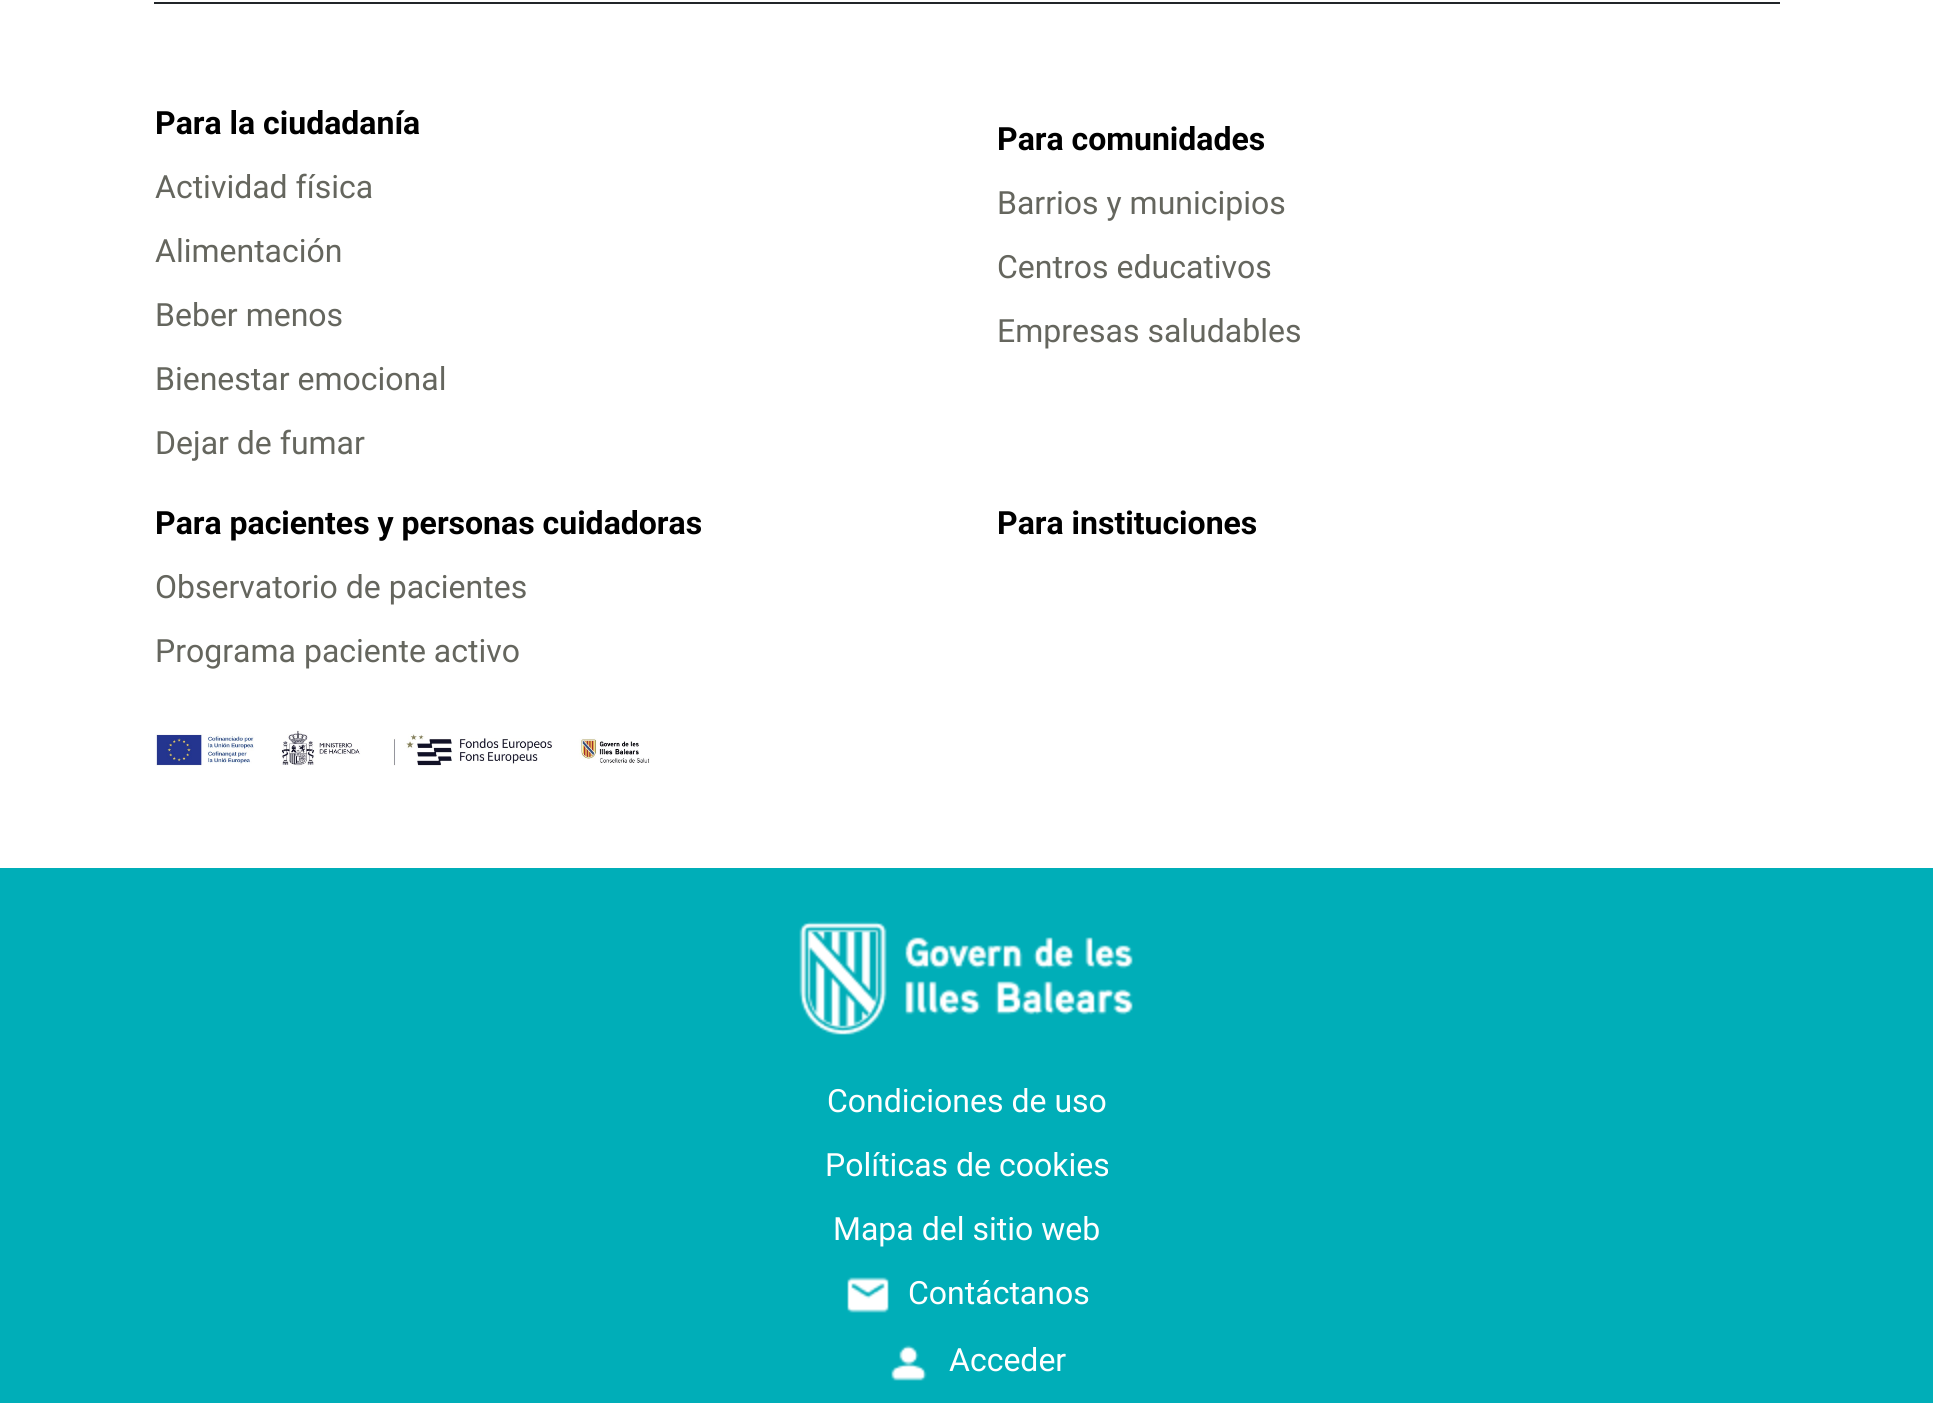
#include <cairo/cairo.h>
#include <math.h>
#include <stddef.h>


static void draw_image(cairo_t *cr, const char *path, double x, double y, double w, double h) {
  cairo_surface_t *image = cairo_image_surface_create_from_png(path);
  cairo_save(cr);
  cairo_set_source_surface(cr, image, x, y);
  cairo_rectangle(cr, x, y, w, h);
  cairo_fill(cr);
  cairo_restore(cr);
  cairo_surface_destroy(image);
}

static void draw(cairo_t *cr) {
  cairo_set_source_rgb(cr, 1, 1, 1);
  cairo_paint(cr);
  cairo_set_source_rgb(cr, 33 / 255.0, 37 / 255.0, 41 / 255.0);
  cairo_rectangle(cr, 154, 2, 1626, 2);
  cairo_fill(cr);
  draw_image(cr, "images/1.png", 155, 730, 495, 36);
  cairo_set_source_rgb(cr, 0, 174 / 255.0, 184 / 255.0);
  cairo_rectangle(cr, 0, 868, 1933, 535);
  cairo_fill(cr);
  draw_image(cr, "images/2.png", 799, 921, 334, 114);
  draw_image(cr, "images/3.png", 847, 1277, 42, 36);
  draw_image(cr, "images/4.png", 891, 1345, 36, 36);
  cairo_select_font_face(cr, "Roboto", CAIRO_FONT_SLANT_NORMAL, CAIRO_FONT_WEIGHT_BOLD);
  cairo_set_font_size(cr, 32);
  cairo_set_source_rgb(cr, 0, 0, 0);
  cairo_move_to(cr, 155, 134);
  cairo_show_text(cr, "Para la ciudadanía");
  cairo_select_font_face(cr, "Roboto", CAIRO_FONT_SLANT_NORMAL, CAIRO_FONT_WEIGHT_NORMAL);
  cairo_set_source_rgb(cr, 101 / 255.0, 102 / 255.0, 94 / 255.0);
  cairo_move_to(cr, 155, 198);
  cairo_show_text(cr, "Actividad física");
  cairo_move_to(cr, 155, 262);
  cairo_show_text(cr, "Alimentación");
  cairo_move_to(cr, 155, 326);
  cairo_show_text(cr, "Beber menos");
  cairo_move_to(cr, 155, 390);
  cairo_show_text(cr, "Bienestar emocional");
  cairo_move_to(cr, 155, 454);
  cairo_show_text(cr, "Dejar de fumar");
  cairo_select_font_face(cr, "Roboto", CAIRO_FONT_SLANT_NORMAL, CAIRO_FONT_WEIGHT_BOLD);
  cairo_set_source_rgb(cr, 0, 0, 0);
  cairo_move_to(cr, 997, 150);
  cairo_show_text(cr, "Para comunidades");
  cairo_select_font_face(cr, "Roboto", CAIRO_FONT_SLANT_NORMAL, CAIRO_FONT_WEIGHT_NORMAL);
  cairo_set_source_rgb(cr, 101 / 255.0, 102 / 255.0, 94 / 255.0);
  cairo_move_to(cr, 997, 214);
  cairo_show_text(cr, "Barrios y municipios");
  cairo_move_to(cr, 997, 278);
  cairo_show_text(cr, "Centros educativos");
  cairo_move_to(cr, 997, 342);
  cairo_show_text(cr, "Empresas saludables");
  cairo_select_font_face(cr, "Roboto", CAIRO_FONT_SLANT_NORMAL, CAIRO_FONT_WEIGHT_BOLD);
  cairo_set_source_rgb(cr, 0, 0, 0);
  cairo_move_to(cr, 155, 534);
  cairo_show_text(cr, "Para pacientes y personas cuidadoras");
  cairo_select_font_face(cr, "Roboto", CAIRO_FONT_SLANT_NORMAL, CAIRO_FONT_WEIGHT_NORMAL);
  cairo_set_source_rgb(cr, 101 / 255.0, 102 / 255.0, 94 / 255.0);
  cairo_move_to(cr, 155, 598);
  cairo_show_text(cr, "Observatorio de pacientes");
  cairo_move_to(cr, 155, 662);
  cairo_show_text(cr, "Programa paciente activo");
  cairo_select_font_face(cr, "Roboto", CAIRO_FONT_SLANT_NORMAL, CAIRO_FONT_WEIGHT_BOLD);
  cairo_set_source_rgb(cr, 0, 0, 0);
  cairo_move_to(cr, 997, 534);
  cairo_show_text(cr, "Para instituciones");
  cairo_select_font_face(cr, "Roboto", CAIRO_FONT_SLANT_NORMAL, CAIRO_FONT_WEIGHT_NORMAL);
  cairo_set_source_rgb(cr, 1, 1, 1);
  cairo_move_to(cr, 827, 1112);
  cairo_show_text(cr, "Condiciones de uso");
  cairo_move_to(cr, 825, 1176);
  cairo_show_text(cr, "Políticas de cookies");
  cairo_move_to(cr, 833, 1240);
  cairo_show_text(cr, "Mapa del sitio web");
  cairo_move_to(cr, 908, 1304);
  cairo_show_text(cr, "Contáctanos");
  cairo_move_to(cr, 949, 1371);
  cairo_show_text(cr, "Acceder");
}

int main(void) {
  cairo_surface_t *surface = cairo_image_surface_create(CAIRO_FORMAT_RGB24, 1933, 1403);
  cairo_t *cr = cairo_create(surface);
  cairo_font_options_t *options = cairo_font_options_create();
  cairo_font_options_set_hint_metrics(options, CAIRO_HINT_METRICS_OFF);
  cairo_font_options_set_hint_style(options, CAIRO_HINT_STYLE_NONE);
  cairo_set_font_options(cr, options);
  cairo_set_miter_limit(cr, 4);
  draw(cr);
  cairo_surface_write_to_png(surface, "out.png");
  cairo_font_options_destroy(options);
  cairo_destroy(cr);
  cairo_surface_destroy(surface);
  return 0;
}
